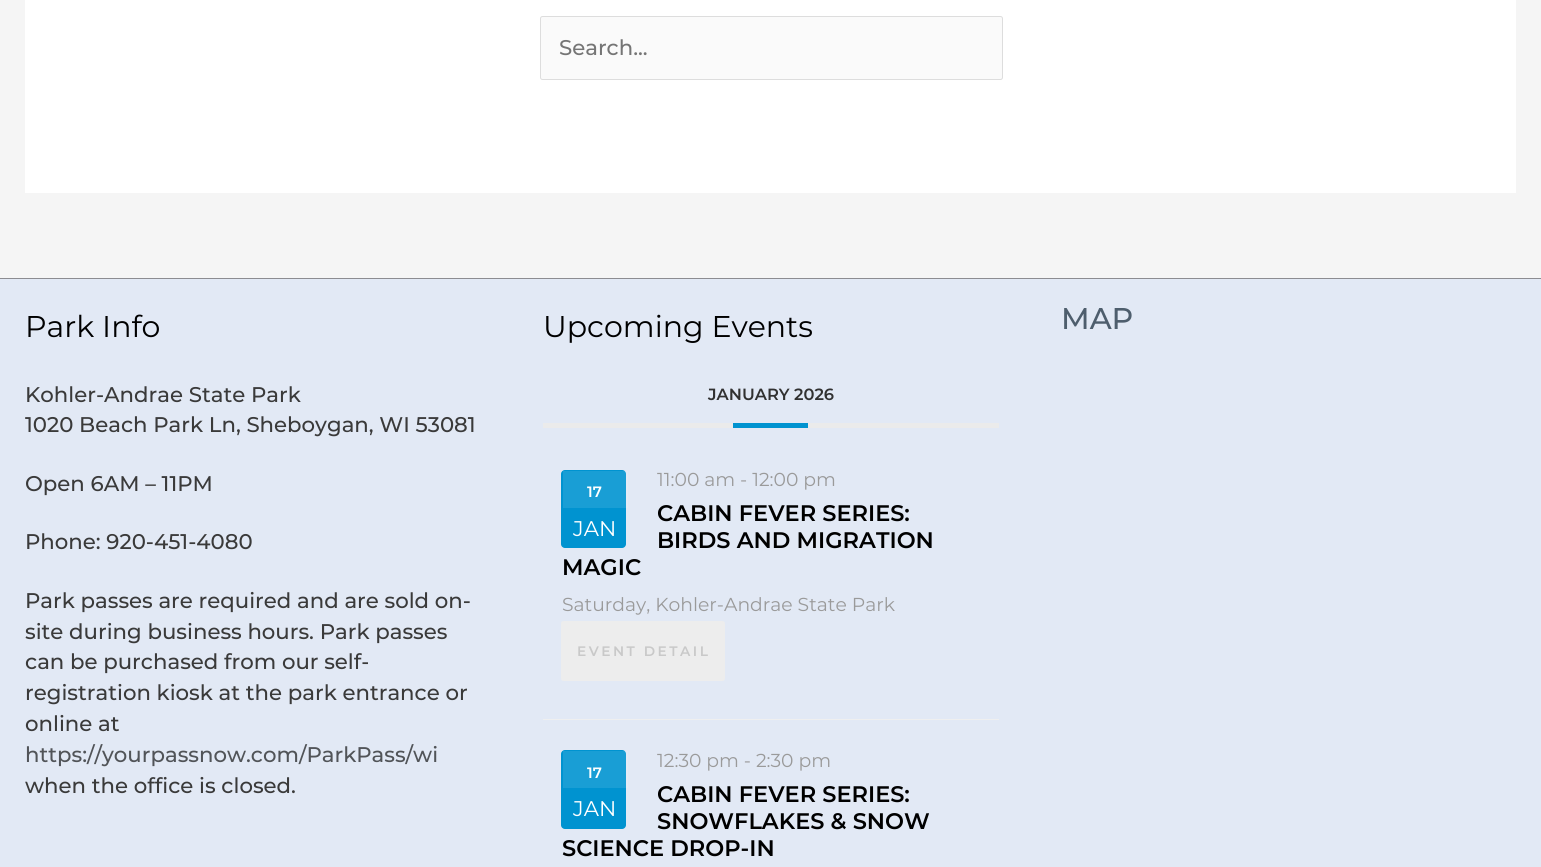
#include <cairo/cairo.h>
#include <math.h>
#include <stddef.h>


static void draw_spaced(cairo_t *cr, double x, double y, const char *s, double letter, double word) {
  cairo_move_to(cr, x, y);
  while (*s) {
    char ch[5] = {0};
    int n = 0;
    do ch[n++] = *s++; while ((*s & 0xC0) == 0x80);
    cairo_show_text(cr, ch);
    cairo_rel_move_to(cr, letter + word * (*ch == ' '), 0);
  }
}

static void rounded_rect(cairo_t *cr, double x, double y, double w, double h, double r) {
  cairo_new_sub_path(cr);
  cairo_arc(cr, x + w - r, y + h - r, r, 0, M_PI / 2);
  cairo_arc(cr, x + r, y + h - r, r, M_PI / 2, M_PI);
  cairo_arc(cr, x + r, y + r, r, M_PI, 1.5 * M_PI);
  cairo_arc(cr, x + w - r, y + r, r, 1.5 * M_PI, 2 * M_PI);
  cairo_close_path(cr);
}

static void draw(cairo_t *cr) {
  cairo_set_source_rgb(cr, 245 / 255.0, 245 / 255.0, 245 / 255.0);
  cairo_paint(cr);
  cairo_set_source_rgb(cr, 1, 1, 1);
  cairo_rectangle(cr, 25, 0, 1491, 193);
  cairo_fill(cr);
  cairo_set_source_rgb(cr, 250 / 255.0, 250 / 255.0, 250 / 255.0);
  rounded_rect(cr, 540.5, 16.5, 462, 63, 2);
  cairo_fill_preserve(cr);
  cairo_set_source_rgb(cr, 221 / 255.0, 221 / 255.0, 221 / 255.0);
  cairo_set_line_width(cr, 1);
  cairo_stroke(cr);
  cairo_set_source_rgb(cr, 226 / 255.0, 233 / 255.0, 245 / 255.0);
  cairo_rectangle(cr, 0, 279, 1541, 588);
  cairo_fill(cr);
  cairo_set_source_rgb(cr, 140 / 255.0, 140 / 255.0, 145 / 255.0);
  cairo_rectangle(cr, 0, 278, 1541, 1);
  cairo_fill(cr);
  cairo_set_source_rgb(cr, 235 / 255.0, 235 / 255.0, 235 / 255.0);
  cairo_rectangle(cr, 543, 423, 456, 5);
  cairo_fill(cr);
  cairo_set_source_rgb(cr, 0, 147 / 255.0, 208 / 255.0);
  cairo_rectangle(cr, 733, 423, 75, 5);
  cairo_fill(cr);
  cairo_set_source_rgb(cr, 239 / 255.0, 239 / 255.0, 239 / 255.0);
  cairo_rectangle(cr, 543, 719, 456, 1);
  cairo_fill(cr);
  cairo_set_source_rgb(cr, 0, 147 / 255.0, 208 / 255.0);
  rounded_rect(cr, 561, 470, 65, 78, 4);
  cairo_fill(cr);
  cairo_set_source_rgba(cr, 1, 1, 1, 0.1);
  cairo_rectangle(cr, 563, 471, 65, 37);
  cairo_fill(cr);
  cairo_set_source_rgb(cr, 237 / 255.0, 237 / 255.0, 237 / 255.0);
  rounded_rect(cr, 561, 621, 164, 60, 2.5);
  cairo_fill(cr);
  cairo_set_source_rgb(cr, 0, 147 / 255.0, 208 / 255.0);
  rounded_rect(cr, 561, 750, 65, 79, 4);
  cairo_fill(cr);
  cairo_set_source_rgba(cr, 1, 1, 1, 0.1);
  cairo_rectangle(cr, 563, 751, 65, 37);
  cairo_fill(cr);
  cairo_select_font_face(cr, "Montserrat Medium", CAIRO_FONT_SLANT_NORMAL, CAIRO_FONT_WEIGHT_NORMAL);
  cairo_set_font_size(cr, 21.25);
  cairo_set_source_rgb(cr, 117 / 255.0, 117 / 255.0, 117 / 255.0);
  cairo_move_to(cr, 559, 55);
  cairo_show_text(cr, "Search...");
  cairo_select_font_face(cr, "Montserrat", CAIRO_FONT_SLANT_NORMAL, CAIRO_FONT_WEIGHT_NORMAL);
  cairo_set_font_size(cr, 30);
  cairo_set_source_rgb(cr, 0, 0, 0);
  cairo_move_to(cr, 25, 337);
  cairo_show_text(cr, "Park Info");
  cairo_select_font_face(cr, "Montserrat Medium", CAIRO_FONT_SLANT_NORMAL, CAIRO_FONT_WEIGHT_NORMAL);
  cairo_set_font_size(cr, 21.25);
  cairo_set_source_rgb(cr, 58 / 255.0, 58 / 255.0, 58 / 255.0);
  cairo_move_to(cr, 25, 402);
  cairo_show_text(cr, "Kohler-Andrae State Park");
  cairo_move_to(cr, 25, 432);
  cairo_show_text(cr, "1020 Beach Park Ln, Sheboygan, WI 53081");
  cairo_move_to(cr, 25, 491);
  cairo_show_text(cr, "Open 6AM – 11PM");
  cairo_move_to(cr, 25, 549);
  cairo_show_text(cr, "Phone: 920-451-4080");
  cairo_move_to(cr, 25, 608);
  cairo_show_text(cr, "Park passes are required and are sold on-");
  cairo_move_to(cr, 25, 639);
  cairo_show_text(cr, "site during business hours. Park passes");
  cairo_move_to(cr, 25, 669);
  cairo_show_text(cr, "can be purchased from our self-");
  cairo_move_to(cr, 25, 700);
  cairo_show_text(cr, "registration kiosk at the park entrance or");
  cairo_move_to(cr, 25, 731);
  cairo_show_text(cr, "online at");
  cairo_set_source_rgb(cr, 81 / 255.0, 84 / 255.0, 88 / 255.0);
  cairo_move_to(cr, 25, 762);
  cairo_show_text(cr, "https://yourpassnow.com/ParkPass/wi");
  cairo_set_source_rgb(cr, 58 / 255.0, 58 / 255.0, 58 / 255.0);
  cairo_move_to(cr, 25, 793);
  cairo_show_text(cr, "when the office is closed.");
  cairo_select_font_face(cr, "Montserrat", CAIRO_FONT_SLANT_NORMAL, CAIRO_FONT_WEIGHT_NORMAL);
  cairo_set_font_size(cr, 30);
  cairo_set_source_rgb(cr, 0, 0, 0);
  cairo_move_to(cr, 543, 337);
  cairo_show_text(cr, "Upcoming Events");
  cairo_select_font_face(cr, "Montserrat SemiBold", CAIRO_FONT_SLANT_NORMAL, CAIRO_FONT_WEIGHT_NORMAL);
  cairo_set_font_size(cr, 16.25);
  cairo_set_source_rgb(cr, 49 / 255.0, 49 / 255.0, 49 / 255.0);
  cairo_move_to(cr, 708, 400);
  cairo_show_text(cr, "JANUARY 2026");
  cairo_select_font_face(cr, "Montserrat", CAIRO_FONT_SLANT_NORMAL, CAIRO_FONT_WEIGHT_NORMAL);
  cairo_set_font_size(cr, 18.75);
  cairo_set_source_rgb(cr, 154 / 255.0, 154 / 255.0, 154 / 255.0);
  cairo_move_to(cr, 657, 486);
  cairo_show_text(cr, "11:00 am - 12:00 pm");
  cairo_select_font_face(cr, "Montserrat SemiBold", CAIRO_FONT_SLANT_NORMAL, CAIRO_FONT_WEIGHT_NORMAL);
  cairo_set_font_size(cr, 15);
  cairo_set_source_rgb(cr, 1, 1, 1);
  cairo_move_to(cr, 587, 497);
  cairo_show_text(cr, "17");
  cairo_select_font_face(cr, "Montserrat", CAIRO_FONT_SLANT_NORMAL, CAIRO_FONT_WEIGHT_NORMAL);
  cairo_set_font_size(cr, 21.25);
  cairo_move_to(cr, 573, 536);
  cairo_show_text(cr, "JAN");
  cairo_select_font_face(cr, "Montserrat SemiBold", CAIRO_FONT_SLANT_NORMAL, CAIRO_FONT_WEIGHT_NORMAL);
  cairo_set_font_size(cr, 22.5);
  cairo_set_source_rgb(cr, 0, 0, 0);
  cairo_move_to(cr, 657, 521);
  cairo_show_text(cr, "CABIN FEVER SERIES:");
  cairo_move_to(cr, 657, 548);
  cairo_show_text(cr, "BIRDS AND MIGRATION");
  cairo_move_to(cr, 562, 575);
  cairo_show_text(cr, "MAGIC");
  cairo_select_font_face(cr, "Montserrat", CAIRO_FONT_SLANT_NORMAL, CAIRO_FONT_WEIGHT_NORMAL);
  cairo_set_font_size(cr, 18.75);
  cairo_set_source_rgb(cr, 154 / 255.0, 154 / 255.0, 154 / 255.0);
  cairo_move_to(cr, 562, 611);
  cairo_show_text(cr, "Saturday, Kohler-Andrae State Park");
  cairo_select_font_face(cr, "Montserrat SemiBold", CAIRO_FONT_SLANT_NORMAL, CAIRO_FONT_WEIGHT_NORMAL);
  cairo_set_font_size(cr, 13.75);
  cairo_set_source_rgb(cr, 201 / 255.0, 201 / 255.0, 201 / 255.0);
  draw_spaced(cr, 577, 656, "EVENT DETAIL", 2.5, 0);
  cairo_select_font_face(cr, "Montserrat", CAIRO_FONT_SLANT_NORMAL, CAIRO_FONT_WEIGHT_NORMAL);
  cairo_set_font_size(cr, 18.75);
  cairo_set_source_rgb(cr, 154 / 255.0, 154 / 255.0, 154 / 255.0);
  cairo_move_to(cr, 657, 767);
  cairo_show_text(cr, "12:30 pm - 2:30 pm");
  cairo_select_font_face(cr, "Montserrat SemiBold", CAIRO_FONT_SLANT_NORMAL, CAIRO_FONT_WEIGHT_NORMAL);
  cairo_set_font_size(cr, 15);
  cairo_set_source_rgb(cr, 1, 1, 1);
  cairo_move_to(cr, 587, 778);
  cairo_show_text(cr, "17");
  cairo_select_font_face(cr, "Montserrat", CAIRO_FONT_SLANT_NORMAL, CAIRO_FONT_WEIGHT_NORMAL);
  cairo_set_font_size(cr, 21.25);
  cairo_move_to(cr, 573, 816);
  cairo_show_text(cr, "JAN");
  cairo_select_font_face(cr, "Montserrat SemiBold", CAIRO_FONT_SLANT_NORMAL, CAIRO_FONT_WEIGHT_NORMAL);
  cairo_set_font_size(cr, 22.5);
  cairo_set_source_rgb(cr, 0, 0, 0);
  cairo_move_to(cr, 657, 802);
  cairo_show_text(cr, "CABIN FEVER SERIES:");
  cairo_move_to(cr, 657, 829);
  cairo_show_text(cr, "SNOWFLAKES & SNOW");
  cairo_move_to(cr, 562, 856);
  cairo_show_text(cr, "SCIENCE DROP-IN");
  cairo_select_font_face(cr, "Montserrat Medium", CAIRO_FONT_SLANT_NORMAL, CAIRO_FONT_WEIGHT_NORMAL);
  cairo_set_font_size(cr, 30);
  cairo_set_source_rgb(cr, 78 / 255.0, 94 / 255.0, 109 / 255.0);
  cairo_move_to(cr, 1061, 329);
  cairo_show_text(cr, "MAP");
}

int main(void) {
  cairo_surface_t *surface = cairo_image_surface_create(CAIRO_FORMAT_RGB24, 1541, 867);
  cairo_t *cr = cairo_create(surface);
  cairo_font_options_t *options = cairo_font_options_create();
  cairo_font_options_set_hint_metrics(options, CAIRO_HINT_METRICS_OFF);
  cairo_font_options_set_hint_style(options, CAIRO_HINT_STYLE_NONE);
  cairo_set_font_options(cr, options);
  cairo_set_miter_limit(cr, 4);
  draw(cr);
  cairo_surface_write_to_png(surface, "out.png");
  cairo_font_options_destroy(options);
  cairo_destroy(cr);
  cairo_surface_destroy(surface);
  return 0;
}
